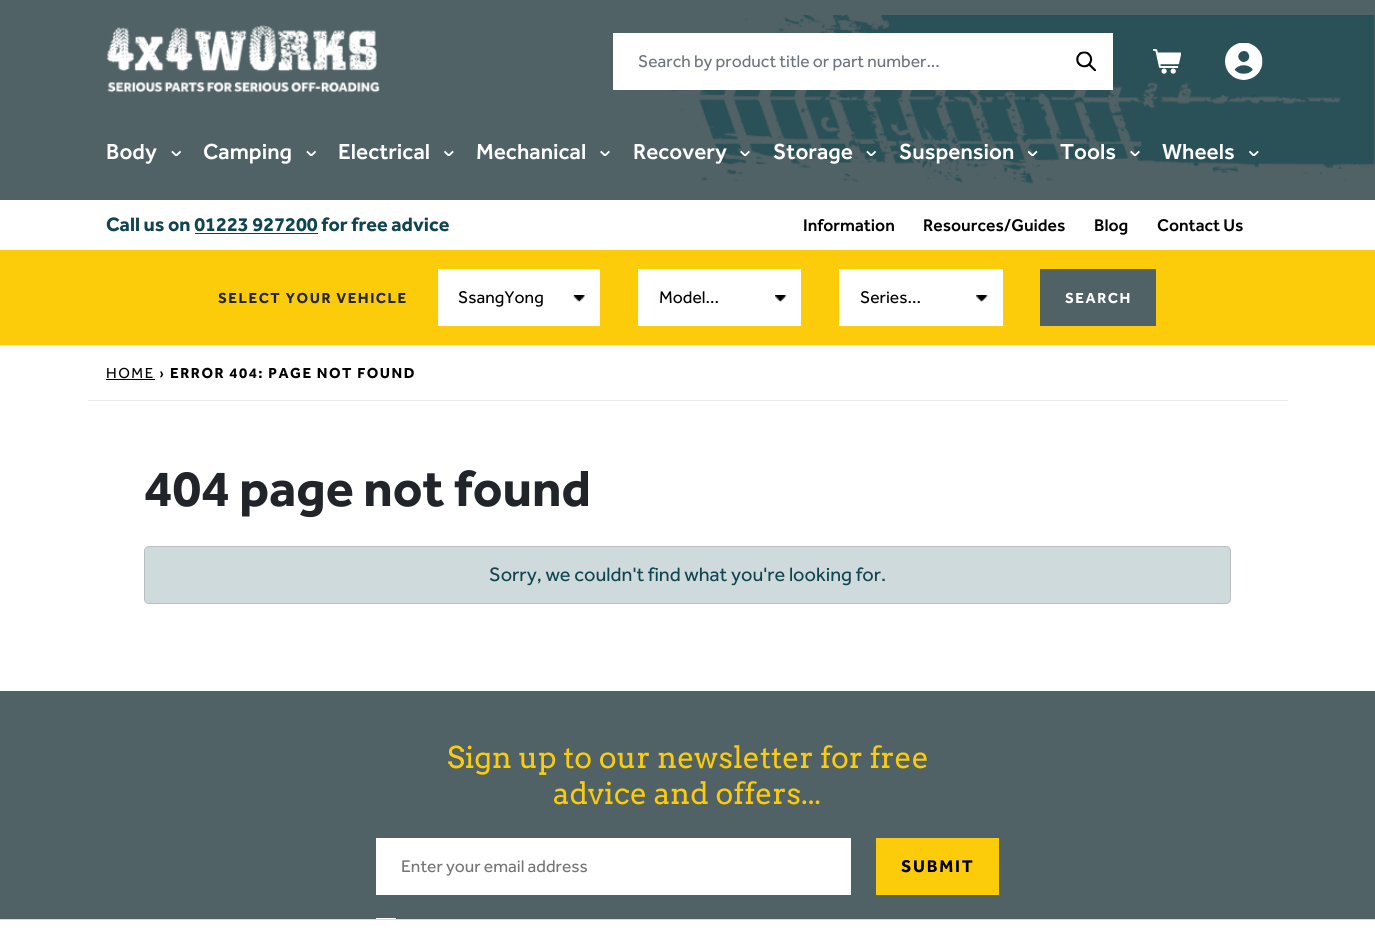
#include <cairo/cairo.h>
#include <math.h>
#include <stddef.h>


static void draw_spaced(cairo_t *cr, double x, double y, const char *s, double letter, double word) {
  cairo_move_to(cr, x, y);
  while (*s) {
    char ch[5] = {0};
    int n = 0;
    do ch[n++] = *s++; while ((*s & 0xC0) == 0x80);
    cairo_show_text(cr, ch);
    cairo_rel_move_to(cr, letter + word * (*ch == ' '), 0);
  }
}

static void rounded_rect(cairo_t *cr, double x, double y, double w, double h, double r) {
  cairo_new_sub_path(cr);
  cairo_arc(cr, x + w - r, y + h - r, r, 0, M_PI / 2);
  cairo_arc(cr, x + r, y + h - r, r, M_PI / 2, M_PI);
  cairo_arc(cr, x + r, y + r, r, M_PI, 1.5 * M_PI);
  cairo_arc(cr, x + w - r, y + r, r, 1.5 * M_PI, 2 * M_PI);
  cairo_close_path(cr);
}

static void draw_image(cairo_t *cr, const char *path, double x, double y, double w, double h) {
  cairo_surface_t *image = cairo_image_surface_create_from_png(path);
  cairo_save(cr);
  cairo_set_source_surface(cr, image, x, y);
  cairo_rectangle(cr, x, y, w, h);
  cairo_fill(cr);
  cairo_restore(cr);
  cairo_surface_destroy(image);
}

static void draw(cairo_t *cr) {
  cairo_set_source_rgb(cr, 1, 1, 1);
  cairo_paint(cr);
  cairo_set_source_rgb(cr, 80 / 255.0, 98 / 255.0, 102 / 255.0);
  cairo_rectangle(cr, 0, 0, 1375, 200);
  cairo_fill(cr);
  draw_image(cr, "images/1.png", 667, 15, 708, 169);
  draw_image(cr, "images/2.png", 106, 25, 274, 68);
  cairo_set_source_rgb(cr, 1, 1, 1);
  cairo_rectangle(cr, 613, 33, 500, 57);
  cairo_fill(cr);
  draw_image(cr, "images/3.png", 1076, 51, 20, 20);
  draw_image(cr, "images/4.png", 1153, 49, 28, 25);
  draw_image(cr, "images/5.png", 1225, 43, 38, 37);
  draw_image(cr, "images/6.png", 171, 150, 10, 6);
  draw_image(cr, "images/6.png", 306, 150, 10, 6);
  draw_image(cr, "images/7.png", 444, 150, 10, 6);
  draw_image(cr, "images/8.png", 600, 150, 10, 6);
  draw_image(cr, "images/9.png", 740, 150, 10, 6);
  draw_image(cr, "images/10.png", 866, 150, 10, 6);
  draw_image(cr, "images/11.png", 1028, 150, 10, 6);
  draw_image(cr, "images/12.png", 1130, 150, 10, 6);
  draw_image(cr, "images/13.png", 1249, 150, 10, 6);
  cairo_set_source_rgb(cr, 16 / 255.0, 69 / 255.0, 79 / 255.0);
  cairo_rectangle(cr, 195, 233, 123, 1);
  cairo_fill(cr);
  cairo_set_source_rgb(cr, 252 / 255.0, 203 / 255.0, 10 / 255.0);
  cairo_rectangle(cr, 0, 250, 1375, 95);
  cairo_fill(cr);
  cairo_set_source_rgb(cr, 1, 1, 1);
  cairo_rectangle(cr, 438, 269, 162, 57);
  cairo_fill(cr);
  draw_image(cr, "images/14.png", 573, 295, 12, 7);
  cairo_rectangle(cr, 638, 269, 163, 57);
  cairo_fill(cr);
  draw_image(cr, "images/15.png", 775, 295, 12, 7);
  cairo_rectangle(cr, 839, 269, 164, 57);
  cairo_fill(cr);
  draw_image(cr, "images/16.png", 976, 295, 12, 7);
  cairo_set_source_rgb(cr, 80 / 255.0, 98 / 255.0, 102 / 255.0);
  cairo_rectangle(cr, 1040, 269, 116, 57);
  cairo_fill(cr);
  cairo_set_source_rgb(cr, 234 / 255.0, 234 / 255.0, 234 / 255.0);
  cairo_rectangle(cr, 88, 400, 1200, 1);
  cairo_fill(cr);
  cairo_set_source_rgb(cr, 0, 0, 0);
  cairo_rectangle(cr, 106, 379, 49, 1);
  cairo_fill(cr);
  cairo_set_source_rgb(cr, 207 / 255.0, 218 / 255.0, 220 / 255.0);
  rounded_rect(cr, 144.5, 546.5, 1086, 57, 4.5);
  cairo_fill_preserve(cr);
  cairo_set_source_rgb(cr, 188 / 255.0, 190 / 255.0, 191 / 255.0);
  cairo_set_line_width(cr, 1);
  cairo_stroke(cr);
  cairo_set_source_rgb(cr, 80 / 255.0, 98 / 255.0, 102 / 255.0);
  cairo_rectangle(cr, 0, 691, 1375, 228);
  cairo_fill(cr);
  cairo_set_source_rgb(cr, 1, 1, 1);
  cairo_rectangle(cr, 376, 838, 475, 57);
  cairo_fill(cr);
  cairo_rectangle(cr, 376, 918, 20, 1);
  cairo_fill(cr);
  cairo_set_source_rgb(cr, 252 / 255.0, 203 / 255.0, 10 / 255.0);
  cairo_rectangle(cr, 876, 838, 123, 57);
  cairo_fill(cr);
  cairo_set_source_rgb(cr, 218 / 255.0, 218 / 255.0, 218 / 255.0);
  cairo_rectangle(cr, 0, 919, 1375, 1);
  cairo_fill(cr);
  cairo_select_font_face(cr, "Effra", CAIRO_FONT_SLANT_NORMAL, CAIRO_FONT_WEIGHT_NORMAL);
  cairo_set_font_size(cr, 17.5);
  cairo_set_source_rgb(cr, 108 / 255.0, 117 / 255.0, 125 / 255.0);
  cairo_move_to(cr, 638, 67);
  cairo_show_text(cr, "Search by product title or part number...");
  cairo_select_font_face(cr, "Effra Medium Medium", CAIRO_FONT_SLANT_NORMAL, CAIRO_FONT_WEIGHT_NORMAL);
  cairo_set_font_size(cr, 22.5);
  cairo_set_source_rgb(cr, 1, 1, 1);
  cairo_move_to(cr, 106, 159);
  cairo_show_text(cr, "Body");
  cairo_move_to(cr, 203, 159);
  cairo_show_text(cr, "Camping");
  cairo_move_to(cr, 338, 159);
  cairo_show_text(cr, "Electrical");
  cairo_move_to(cr, 476, 159);
  cairo_show_text(cr, "Mechanical");
  cairo_move_to(cr, 633, 159);
  cairo_show_text(cr, "Recovery");
  cairo_move_to(cr, 773, 159);
  cairo_show_text(cr, "Storage");
  cairo_move_to(cr, 899, 159);
  cairo_show_text(cr, "Suspension");
  cairo_move_to(cr, 1060, 159);
  cairo_show_text(cr, "Tools");
  cairo_move_to(cr, 1162, 159);
  cairo_show_text(cr, "Wheels");
  cairo_select_font_face(cr, "Effra", CAIRO_FONT_SLANT_NORMAL, CAIRO_FONT_WEIGHT_BOLD);
  cairo_set_font_size(cr, 20);
  cairo_set_source_rgb(cr, 16 / 255.0, 69 / 255.0, 79 / 255.0);
  cairo_move_to(cr, 106, 231);
  cairo_show_text(cr, "Call us on 01223 927200 for free advice");
  cairo_select_font_face(cr, "Effra Medium Medium", CAIRO_FONT_SLANT_NORMAL, CAIRO_FONT_WEIGHT_NORMAL);
  cairo_set_font_size(cr, 17.5);
  cairo_set_source_rgb(cr, 0, 0, 0);
  cairo_move_to(cr, 803, 231);
  cairo_show_text(cr, "Information");
  cairo_move_to(cr, 923, 231);
  cairo_show_text(cr, "Resources/Guides");
  cairo_move_to(cr, 1094, 231);
  cairo_show_text(cr, "Blog");
  cairo_move_to(cr, 1157, 231);
  cairo_show_text(cr, "Contact Us");
  cairo_select_font_face(cr, "Effra", CAIRO_FONT_SLANT_NORMAL, CAIRO_FONT_WEIGHT_BOLD);
  cairo_set_font_size(cr, 15);
  cairo_set_source_rgb(cr, 33 / 255.0, 37 / 255.0, 41 / 255.0);
  draw_spaced(cr, 218, 303, "SELECT YOUR VEHICLE", 1.5, 0);
  cairo_select_font_face(cr, "Effra", CAIRO_FONT_SLANT_NORMAL, CAIRO_FONT_WEIGHT_NORMAL);
  cairo_set_font_size(cr, 17.5);
  cairo_set_source_rgb(cr, 0, 0, 0);
  cairo_move_to(cr, 458, 303);
  cairo_show_text(cr, "SsangYong");
  cairo_move_to(cr, 659, 303);
  cairo_show_text(cr, "Model...");
  cairo_move_to(cr, 860, 303);
  cairo_show_text(cr, "Series...");
  cairo_select_font_face(cr, "Effra", CAIRO_FONT_SLANT_NORMAL, CAIRO_FONT_WEIGHT_BOLD);
  cairo_set_font_size(cr, 15);
  cairo_set_source_rgb(cr, 1, 1, 1);
  draw_spaced(cr, 1065, 303, "SEARCH", 1.5, 0);
  cairo_select_font_face(cr, "Effra", CAIRO_FONT_SLANT_NORMAL, CAIRO_FONT_WEIGHT_NORMAL);
  cairo_set_source_rgb(cr, 0, 0, 0);
  draw_spaced(cr, 106, 378, "HOME", 1.5, 0);
  cairo_select_font_face(cr, "Effra Medium Medium", CAIRO_FONT_SLANT_NORMAL, CAIRO_FONT_WEIGHT_NORMAL);
  draw_spaced(cr, 159, 378, "›", 1.5, 0);
  cairo_select_font_face(cr, "Effra", CAIRO_FONT_SLANT_NORMAL, CAIRO_FONT_WEIGHT_BOLD);
  draw_spaced(cr, 170, 378, "ERROR 404: PAGE NOT FOUND", 1.5, 0);
  cairo_set_font_size(cr, 52.5);
  cairo_set_source_rgb(cr, 33 / 255.0, 37 / 255.0, 41 / 255.0);
  cairo_move_to(cr, 144, 506);
  cairo_show_text(cr, "404 page not found");
  cairo_select_font_face(cr, "Effra", CAIRO_FONT_SLANT_NORMAL, CAIRO_FONT_WEIGHT_NORMAL);
  cairo_set_font_size(cr, 20);
  cairo_set_source_rgb(cr, 16 / 255.0, 69 / 255.0, 79 / 255.0);
  cairo_move_to(cr, 489, 581);
  cairo_show_text(cr, "Sorry, we couldn't find what you're looking for.");
  cairo_select_font_face(cr, "Arvo", CAIRO_FONT_SLANT_NORMAL, CAIRO_FONT_WEIGHT_NORMAL);
  cairo_set_font_size(cr, 30);
  cairo_set_source_rgb(cr, 252 / 255.0, 203 / 255.0, 10 / 255.0);
  cairo_move_to(cr, 447, 768);
  cairo_show_text(cr, "Sign up to our newsletter for free");
  cairo_move_to(cr, 553, 804);
  cairo_show_text(cr, "advice and offers...");
  cairo_select_font_face(cr, "Effra", CAIRO_FONT_SLANT_NORMAL, CAIRO_FONT_WEIGHT_NORMAL);
  cairo_set_font_size(cr, 17.5);
  cairo_set_source_rgb(cr, 117 / 255.0, 117 / 255.0, 117 / 255.0);
  cairo_move_to(cr, 401, 872);
  cairo_show_text(cr, "Enter your email address");
  cairo_select_font_face(cr, "Effra", CAIRO_FONT_SLANT_NORMAL, CAIRO_FONT_WEIGHT_BOLD);
  cairo_set_source_rgb(cr, 0, 0, 0);
  draw_spaced(cr, 901, 872, "SUBMIT", 1.75, 0);
}

int main(void) {
  cairo_surface_t *surface = cairo_image_surface_create(CAIRO_FORMAT_RGB24, 1375, 936);
  cairo_t *cr = cairo_create(surface);
  cairo_font_options_t *options = cairo_font_options_create();
  cairo_font_options_set_hint_metrics(options, CAIRO_HINT_METRICS_OFF);
  cairo_font_options_set_hint_style(options, CAIRO_HINT_STYLE_NONE);
  cairo_set_font_options(cr, options);
  cairo_set_miter_limit(cr, 4);
  draw(cr);
  cairo_surface_write_to_png(surface, "out.png");
  cairo_font_options_destroy(options);
  cairo_destroy(cr);
  cairo_surface_destroy(surface);
  return 0;
}
